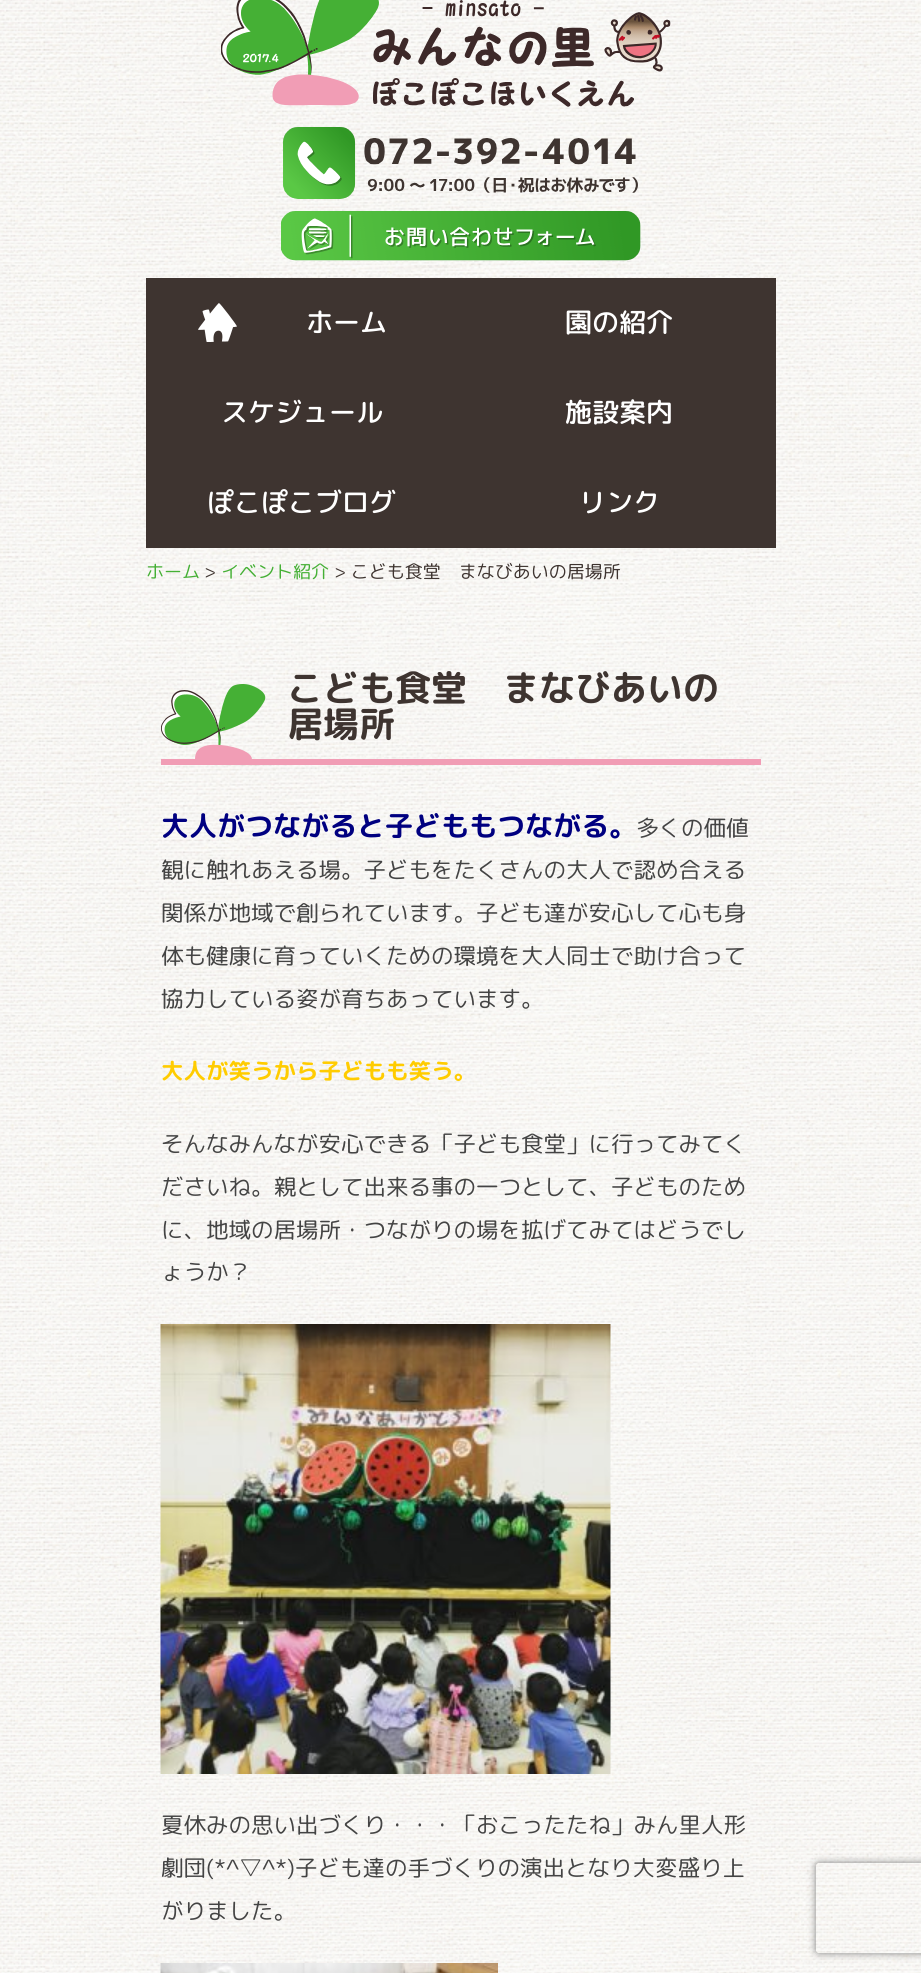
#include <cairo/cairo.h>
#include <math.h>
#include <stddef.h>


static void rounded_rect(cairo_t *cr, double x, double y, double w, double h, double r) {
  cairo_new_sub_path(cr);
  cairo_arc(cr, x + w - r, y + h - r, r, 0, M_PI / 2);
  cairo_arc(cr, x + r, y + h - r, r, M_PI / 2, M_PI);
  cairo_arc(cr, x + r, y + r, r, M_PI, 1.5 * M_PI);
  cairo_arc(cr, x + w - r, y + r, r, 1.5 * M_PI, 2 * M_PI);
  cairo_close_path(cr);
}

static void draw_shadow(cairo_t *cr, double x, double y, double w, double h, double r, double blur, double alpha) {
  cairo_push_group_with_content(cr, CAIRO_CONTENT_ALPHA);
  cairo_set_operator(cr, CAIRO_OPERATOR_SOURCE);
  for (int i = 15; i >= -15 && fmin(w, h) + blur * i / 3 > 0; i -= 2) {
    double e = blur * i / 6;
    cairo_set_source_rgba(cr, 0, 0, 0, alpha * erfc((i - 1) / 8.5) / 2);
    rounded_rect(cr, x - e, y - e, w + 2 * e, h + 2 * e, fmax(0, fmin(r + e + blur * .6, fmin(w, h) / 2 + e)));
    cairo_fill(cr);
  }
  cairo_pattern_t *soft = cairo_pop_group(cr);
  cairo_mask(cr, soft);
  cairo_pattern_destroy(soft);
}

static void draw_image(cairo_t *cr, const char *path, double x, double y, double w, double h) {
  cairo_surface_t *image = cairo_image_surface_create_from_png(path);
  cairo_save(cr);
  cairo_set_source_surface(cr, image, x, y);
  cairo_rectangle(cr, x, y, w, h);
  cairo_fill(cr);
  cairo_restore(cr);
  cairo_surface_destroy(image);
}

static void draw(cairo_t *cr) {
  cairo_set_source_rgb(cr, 1, 1, 1);
  cairo_paint(cr);
  draw_image(cr, "images/1.png", 0, 0, 921, 1973);
  draw_image(cr, "images/2.png", 221, 0, 450, 107);
  draw_image(cr, "images/3.png", 283, 127, 355, 72);
  draw_image(cr, "images/4.png", 281, 211, 360, 50);
  cairo_set_source_rgb(cr, 62 / 255.0, 52 / 255.0, 48 / 255.0);
  cairo_rectangle(cr, 146, 278, 630, 270);
  cairo_fill(cr);
  draw_image(cr, "images/5.png", 198, 303, 39, 39);
  draw_image(cr, "images/6.png", 161, 684, 105, 75);
  cairo_set_source_rgb(cr, 241 / 255.0, 157 / 255.0, 181 / 255.0);
  cairo_rectangle(cr, 161, 759, 600, 6);
  cairo_fill(cr);
  draw_image(cr, "images/7.png", 160, 1324, 451, 450);
  draw_image(cr, "images/8.png", 160, 1963, 338, 10);
  cairo_save(cr);
  cairo_set_fill_rule(cr, CAIRO_FILL_RULE_EVEN_ODD);
  cairo_new_path(cr);
  cairo_move_to(cr, 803, 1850);
  cairo_line_to(cr, 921, 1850);
  cairo_line_to(cr, 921, 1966);
  cairo_line_to(cr, 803, 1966);
  cairo_close_path(cr);
  cairo_move_to(cr, 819, 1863);
  cairo_line_to(cr, 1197, 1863);
  cairo_curve_to(cr, 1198.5, 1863, 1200, 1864.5, 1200, 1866);
  cairo_line_to(cr, 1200, 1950);
  cairo_curve_to(cr, 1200, 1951.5, 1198.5, 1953, 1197, 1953);
  cairo_line_to(cr, 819, 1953);
  cairo_curve_to(cr, 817.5, 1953, 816, 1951.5, 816, 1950);
  cairo_line_to(cr, 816, 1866);
  cairo_curve_to(cr, 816, 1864.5, 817.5, 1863, 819, 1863);
  cairo_close_path(cr);
  cairo_clip(cr);
  cairo_set_source_rgb(cr, 128 / 255.0, 128 / 255.0, 128 / 255.0);
  draw_shadow(cr, 816, 1863, 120, 90, 3, 4, 1);
  cairo_restore(cr);
  cairo_select_font_face(cr, "Rounded Mplus 1c Medium", CAIRO_FONT_SLANT_NORMAL, CAIRO_FONT_WEIGHT_NORMAL);
  cairo_set_font_size(cr, 27);
  cairo_set_source_rgb(cr, 1, 1, 1);
  cairo_move_to(cr, 306, 332);
  cairo_show_text(cr, "ホーム");
  cairo_move_to(cr, 565, 332);
  cairo_show_text(cr, "園の紹介");
  cairo_move_to(cr, 221, 422);
  cairo_show_text(cr, "スケジュール");
  cairo_move_to(cr, 565, 422);
  cairo_show_text(cr, "施設案内");
  cairo_move_to(cr, 207, 512);
  cairo_show_text(cr, "ぽこぽこブログ");
  cairo_move_to(cr, 579, 512);
  cairo_show_text(cr, "リンク");
  cairo_select_font_face(cr, "Rounded Mplus 1c", CAIRO_FONT_SLANT_NORMAL, CAIRO_FONT_WEIGHT_NORMAL);
  cairo_set_font_size(cr, 18);
  cairo_set_source_rgb(cr, 69 / 255.0, 176 / 255.0, 53 / 255.0);
  cairo_move_to(cr, 146, 578);
  cairo_show_text(cr, "ホーム");
  cairo_set_source_rgb(cr, 62 / 255.0, 52 / 255.0, 48 / 255.0);
  cairo_move_to(cr, 204, 578);
  cairo_show_text(cr, ">");
  cairo_set_source_rgb(cr, 69 / 255.0, 176 / 255.0, 53 / 255.0);
  cairo_move_to(cr, 221, 578);
  cairo_show_text(cr, "イベント紹介");
  cairo_set_source_rgb(cr, 62 / 255.0, 52 / 255.0, 48 / 255.0);
  cairo_move_to(cr, 334, 578);
  cairo_show_text(cr, "> こども食堂　まなびあいの居場所");
  cairo_select_font_face(cr, "Rounded Mplus 1c Bold", CAIRO_FONT_SLANT_NORMAL, CAIRO_FONT_WEIGHT_BOLD);
  cairo_set_font_size(cr, 36);
  cairo_move_to(cr, 287, 701);
  cairo_show_text(cr, "こども食堂　まなびあいの");
  cairo_move_to(cr, 287, 737);
  cairo_show_text(cr, "居場所");
  cairo_set_font_size(cr, 28);
  cairo_set_source_rgb(cr, 0, 0, 128 / 255.0);
  cairo_move_to(cr, 161, 836);
  cairo_show_text(cr, "大人がつながると子どももつながる。");
  cairo_select_font_face(cr, "Rounded Mplus 1c", CAIRO_FONT_SLANT_NORMAL, CAIRO_FONT_WEIGHT_NORMAL);
  cairo_set_font_size(cr, 22.5);
  cairo_set_source_rgb(cr, 68 / 255.0, 68 / 255.0, 68 / 255.0);
  cairo_move_to(cr, 636, 836);
  cairo_show_text(cr, "多くの価値");
  cairo_move_to(cr, 161, 878);
  cairo_show_text(cr, "観に触れあえる場。子どもをたくさんの大人で認め合える");
  cairo_move_to(cr, 161, 921);
  cairo_show_text(cr, "関係が地域で創られています。子ども達が安心して心も身");
  cairo_move_to(cr, 161, 964);
  cairo_show_text(cr, "体も健康に育っていくための環境を大人同士で助け合って");
  cairo_move_to(cr, 161, 1007);
  cairo_show_text(cr, "協力している姿が育ちあっています。");
  cairo_select_font_face(cr, "Rounded Mplus 1c Bold", CAIRO_FONT_SLANT_NORMAL, CAIRO_FONT_WEIGHT_BOLD);
  cairo_set_source_rgb(cr, 1, 204 / 255.0, 0);
  cairo_move_to(cr, 161, 1079);
  cairo_show_text(cr, "大人が笑うから子どもも笑う。");
  cairo_select_font_face(cr, "Rounded Mplus 1c", CAIRO_FONT_SLANT_NORMAL, CAIRO_FONT_WEIGHT_NORMAL);
  cairo_set_source_rgb(cr, 68 / 255.0, 68 / 255.0, 68 / 255.0);
  cairo_move_to(cr, 161, 1152);
  cairo_show_text(cr, "そんなみんなが安心できる「子ども食堂」に行ってみてく");
  cairo_move_to(cr, 161, 1195);
  cairo_show_text(cr, "ださいね。親として出来る事の一つとして、子どものため");
  cairo_move_to(cr, 161, 1238);
  cairo_show_text(cr, "に、地域の居場所・つながりの場を拡げてみてはどうでし");
  cairo_move_to(cr, 161, 1280);
  cairo_show_text(cr, "ょうか？");
  cairo_move_to(cr, 161, 1833);
  cairo_show_text(cr, "夏休みの思い出づくり・・・「おこったたね」みん里人形");
  cairo_move_to(cr, 161, 1876);
  cairo_show_text(cr, "劇団(*^▽^*)子ども達の手づくりの演出となり大変盛り上");
  cairo_move_to(cr, 161, 1919);
  cairo_show_text(cr, "がりました。");
}

int main(void) {
  cairo_surface_t *surface = cairo_image_surface_create(CAIRO_FORMAT_RGB24, 921, 1973);
  cairo_t *cr = cairo_create(surface);
  cairo_font_options_t *options = cairo_font_options_create();
  cairo_font_options_set_hint_metrics(options, CAIRO_HINT_METRICS_OFF);
  cairo_font_options_set_hint_style(options, CAIRO_HINT_STYLE_NONE);
  cairo_set_font_options(cr, options);
  cairo_set_miter_limit(cr, 4);
  draw(cr);
  cairo_surface_write_to_png(surface, "out.png");
  cairo_font_options_destroy(options);
  cairo_destroy(cr);
  cairo_surface_destroy(surface);
  return 0;
}
